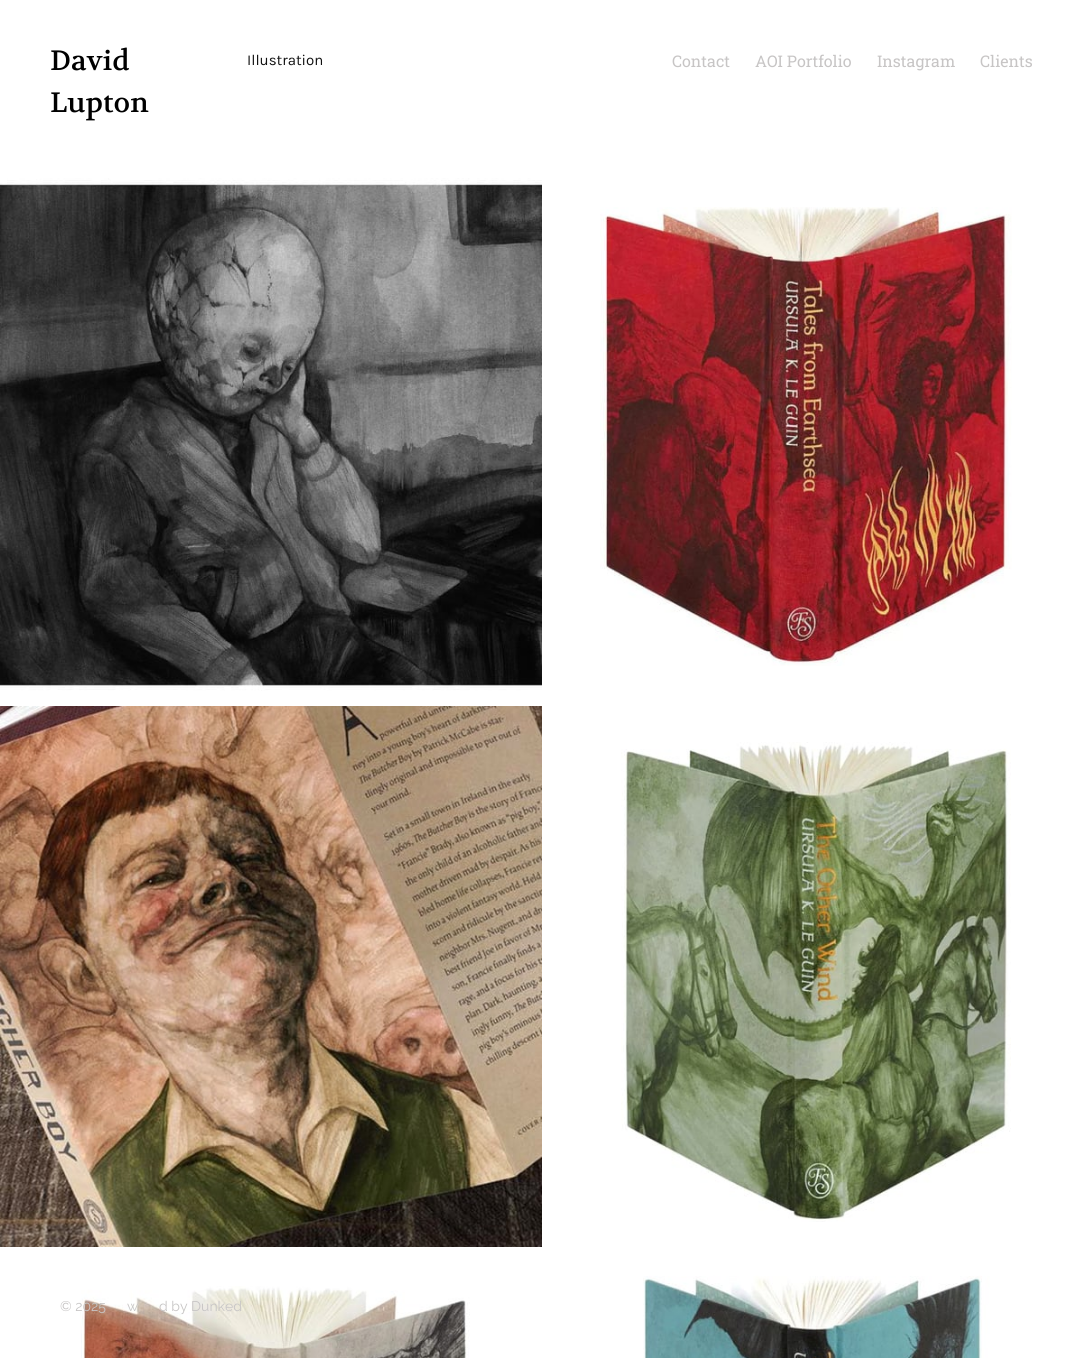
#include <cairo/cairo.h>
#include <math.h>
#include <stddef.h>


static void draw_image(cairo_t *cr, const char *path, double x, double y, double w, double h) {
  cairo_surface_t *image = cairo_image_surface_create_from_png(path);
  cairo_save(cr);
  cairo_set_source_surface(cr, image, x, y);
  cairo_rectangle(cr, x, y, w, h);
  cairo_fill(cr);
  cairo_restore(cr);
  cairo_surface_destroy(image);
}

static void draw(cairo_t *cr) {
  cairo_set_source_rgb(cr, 1, 1, 1);
  cairo_paint(cr);
  draw_image(cr, "images/1.png", 0, 178, 542, 513);
  draw_image(cr, "images/2.png", 0, 184, 542, 503);
  draw_image(cr, "images/3.png", 600, 207, 412, 459);
  draw_image(cr, "images/4.png", 605, 211, 401, 451);
  draw_image(cr, "images/5.png", 0, 706, 542, 541);
  draw_image(cr, "images/6.png", 621, 742, 390, 480);
  draw_image(cr, "images/7.png", 646, 961, 332, 21);
  draw_image(cr, "images/8.png", 80, 1286, 390, 72);
  draw_image(cr, "images/9.png", 83, 1289, 384, 69);
  draw_image(cr, "images/10.png", 637, 1247, 369, 111);
  cairo_select_font_face(cr, "Volkhov", CAIRO_FONT_SLANT_NORMAL, CAIRO_FONT_WEIGHT_NORMAL);
  cairo_set_font_size(cr, 28);
  cairo_set_source_rgb(cr, 0, 0, 0);
  cairo_move_to(cr, 50, 70);
  cairo_show_text(cr, "David");
  cairo_move_to(cr, 50, 112);
  cairo_show_text(cr, "Lupton");
  cairo_select_font_face(cr, "Karla", CAIRO_FONT_SLANT_NORMAL, CAIRO_FONT_WEIGHT_NORMAL);
  cairo_set_font_size(cr, 15);
  cairo_set_source_rgb(cr, 17 / 255.0, 17 / 255.0, 17 / 255.0);
  cairo_move_to(cr, 247, 65);
  cairo_show_text(cr, "Illustration");
  cairo_select_font_face(cr, "Roboto Slab", CAIRO_FONT_SLANT_NORMAL, CAIRO_FONT_WEIGHT_NORMAL);
  cairo_set_font_size(cr, 16);
  cairo_set_source_rgb(cr, 199 / 255.0, 197 / 255.0, 197 / 255.0);
  cairo_move_to(cr, 672, 67);
  cairo_show_text(cr, "Contact");
  cairo_move_to(cr, 755, 67);
  cairo_show_text(cr, "AOI Portfolio");
  cairo_move_to(cr, 877, 67);
  cairo_show_text(cr, "Instagram");
  cairo_move_to(cr, 980, 67);
  cairo_show_text(cr, "Clients");
  cairo_select_font_face(cr, "Raleway", CAIRO_FONT_SLANT_NORMAL, CAIRO_FONT_WEIGHT_NORMAL);
  cairo_set_font_size(cr, 14);
  cairo_move_to(cr, 60, 1311);
  cairo_show_text(cr, "© 2025");
  cairo_move_to(cr, 127, 1311);
  cairo_show_text(cr, "w");
  cairo_move_to(cr, 159, 1311);
  cairo_show_text(cr, "d by Dunked");
}

int main(void) {
  cairo_surface_t *surface = cairo_image_surface_create(CAIRO_FORMAT_RGB24, 1083, 1358);
  cairo_t *cr = cairo_create(surface);
  cairo_font_options_t *options = cairo_font_options_create();
  cairo_font_options_set_hint_metrics(options, CAIRO_HINT_METRICS_OFF);
  cairo_font_options_set_hint_style(options, CAIRO_HINT_STYLE_NONE);
  cairo_set_font_options(cr, options);
  cairo_set_miter_limit(cr, 4);
  draw(cr);
  cairo_surface_write_to_png(surface, "out.png");
  cairo_font_options_destroy(options);
  cairo_destroy(cr);
  cairo_surface_destroy(surface);
  return 0;
}
